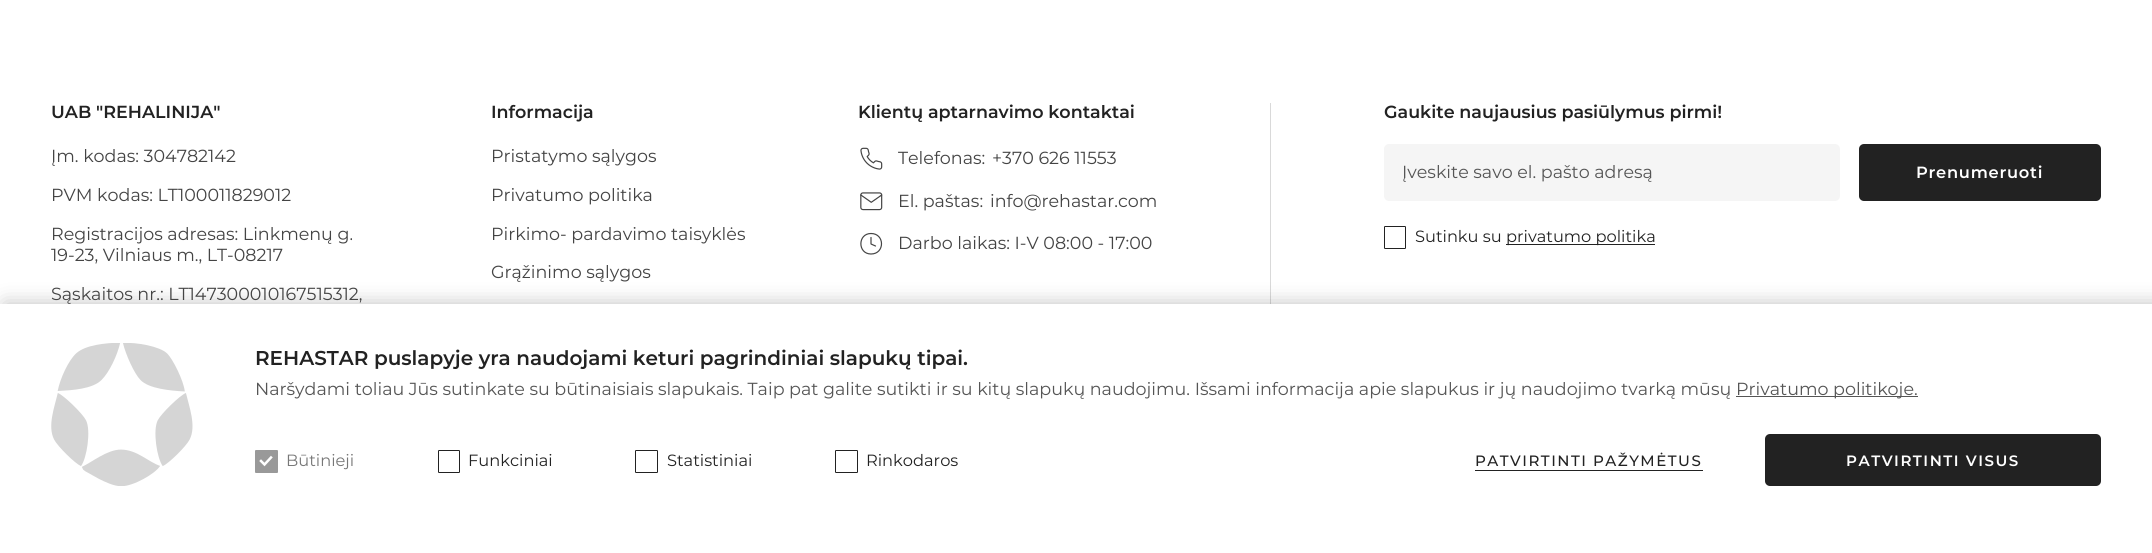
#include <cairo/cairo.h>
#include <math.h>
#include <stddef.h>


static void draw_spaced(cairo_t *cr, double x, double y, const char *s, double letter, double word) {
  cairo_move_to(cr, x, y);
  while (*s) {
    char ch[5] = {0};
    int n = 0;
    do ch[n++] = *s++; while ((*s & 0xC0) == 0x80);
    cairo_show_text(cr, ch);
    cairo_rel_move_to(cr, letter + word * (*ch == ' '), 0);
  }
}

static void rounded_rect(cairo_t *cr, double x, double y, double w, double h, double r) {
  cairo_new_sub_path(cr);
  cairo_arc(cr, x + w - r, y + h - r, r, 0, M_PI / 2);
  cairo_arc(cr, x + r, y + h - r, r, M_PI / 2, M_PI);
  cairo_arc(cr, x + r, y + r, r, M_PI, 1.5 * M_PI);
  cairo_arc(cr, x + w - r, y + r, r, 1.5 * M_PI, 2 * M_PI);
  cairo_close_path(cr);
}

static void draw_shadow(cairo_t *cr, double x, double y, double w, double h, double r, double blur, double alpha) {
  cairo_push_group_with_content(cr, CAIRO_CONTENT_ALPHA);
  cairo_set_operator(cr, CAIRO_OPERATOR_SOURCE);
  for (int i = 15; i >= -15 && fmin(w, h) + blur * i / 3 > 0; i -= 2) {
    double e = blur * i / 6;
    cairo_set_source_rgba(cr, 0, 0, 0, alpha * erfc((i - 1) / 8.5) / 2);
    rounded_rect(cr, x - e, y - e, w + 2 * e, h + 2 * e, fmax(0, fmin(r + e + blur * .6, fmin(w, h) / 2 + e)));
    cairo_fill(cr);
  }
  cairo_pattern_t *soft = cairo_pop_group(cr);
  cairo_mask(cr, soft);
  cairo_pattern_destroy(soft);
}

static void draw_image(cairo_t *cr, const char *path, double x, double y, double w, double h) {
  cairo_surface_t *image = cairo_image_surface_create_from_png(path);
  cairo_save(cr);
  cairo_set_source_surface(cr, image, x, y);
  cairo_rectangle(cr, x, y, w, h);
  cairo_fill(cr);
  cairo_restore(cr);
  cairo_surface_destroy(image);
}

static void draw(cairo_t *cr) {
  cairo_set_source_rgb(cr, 1, 1, 1);
  cairo_paint(cr);
  draw_image(cr, "images/1.png", 860, 147, 23, 23);
  draw_image(cr, "images/2.png", 860, 192, 23, 19);
  cairo_new_path(cr);
  cairo_move_to(cr, 871, 254);
  cairo_curve_to(cr, 885, 254, 885, 233.5, 871, 233.5);
  cairo_curve_to(cr, 857.5, 233.5, 857.5, 254, 871, 254);
  cairo_close_path(cr);
  cairo_move_to(cr, 871, 237.5);
  cairo_line_to(cr, 871, 244);
  cairo_line_to(cr, 875.5, 246);
  cairo_set_source_rgb(cr, 68 / 255.0, 68 / 255.0, 68 / 255.0);
  cairo_set_line_width(cr, 1.2);
  cairo_set_line_cap(cr, CAIRO_LINE_CAP_ROUND);
  cairo_set_line_join(cr, CAIRO_LINE_JOIN_ROUND);
  cairo_stroke(cr);
  cairo_set_source_rgb(cr, 217 / 255.0, 217 / 255.0, 217 / 255.0);
  cairo_rectangle(cr, 1270, 103, 1, 201);
  cairo_fill(cr);
  cairo_set_source_rgb(cr, 245 / 255.0, 245 / 255.0, 245 / 255.0);
  rounded_rect(cr, 1384, 144, 456, 57, 5);
  cairo_fill(cr);
  cairo_set_source_rgb(cr, 34 / 255.0, 34 / 255.0, 34 / 255.0);
  rounded_rect(cr, 1859, 144, 242, 57, 5);
  cairo_fill(cr);
  rounded_rect(cr, 1384.5, 226.5, 21, 22, 0.5);
  cairo_set_line_width(cr, 1);
  cairo_set_line_cap(cr, CAIRO_LINE_CAP_BUTT);
  cairo_set_line_join(cr, CAIRO_LINE_JOIN_MITER);
  cairo_stroke(cr);
  cairo_rectangle(cr, 1506, 244, 149, 1);
  cairo_fill(cr);
  cairo_set_source_rgb(cr, 0, 0, 0);
  draw_shadow(cr, 5, 304, 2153, 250, 0, 10, 0.25);
  cairo_set_source_rgb(cr, 1, 1, 1);
  cairo_rectangle(cr, 0, 304, 2152, 249);
  cairo_fill(cr);
  draw_image(cr, "images/3.png", 51, 343, 142, 143);
  cairo_set_source_rgb(cr, 85 / 255.0, 85 / 255.0, 85 / 255.0);
  cairo_rectangle(cr, 1736, 396, 182, 1);
  cairo_fill(cr);
  cairo_set_source_rgb(cr, 153 / 255.0, 153 / 255.0, 153 / 255.0);
  rounded_rect(cr, 255.5, 450.5, 22, 22, 0.5);
  cairo_fill_preserve(cr);
  cairo_stroke(cr);
  cairo_new_path(cr);
  cairo_move_to(cr, 271, 457.5);
  cairo_line_to(cr, 264.5, 464.5);
  cairo_line_to(cr, 261, 461);
  cairo_set_source_rgb(cr, 1, 1, 1);
  cairo_set_line_width(cr, 2.5);
  cairo_set_line_cap(cr, CAIRO_LINE_CAP_SQUARE);
  cairo_stroke(cr);
  rounded_rect(cr, 438.5, 450.5, 21, 22, 0.5);
  cairo_set_source_rgb(cr, 34 / 255.0, 34 / 255.0, 34 / 255.0);
  cairo_set_line_width(cr, 1);
  cairo_set_line_cap(cr, CAIRO_LINE_CAP_BUTT);
  cairo_stroke(cr);
  rounded_rect(cr, 635.5, 450.5, 22, 22, 0.5);
  cairo_stroke(cr);
  rounded_rect(cr, 835.5, 450.5, 22, 22, 0.5);
  cairo_stroke(cr);
  cairo_rectangle(cr, 1475, 470, 228, 1);
  cairo_fill(cr);
  rounded_rect(cr, 1765, 434, 336, 52, 5);
  cairo_fill(cr);
  cairo_select_font_face(cr, "Montserrat SemiBold", CAIRO_FONT_SLANT_NORMAL, CAIRO_FONT_WEIGHT_NORMAL);
  cairo_set_font_size(cr, 17.5);
  cairo_move_to(cr, 51, 118);
  cairo_show_text(cr, "UAB \"REHALINIJA\"");
  cairo_select_font_face(cr, "Montserrat", CAIRO_FONT_SLANT_NORMAL, CAIRO_FONT_WEIGHT_NORMAL);
  cairo_set_source_rgb(cr, 68 / 255.0, 68 / 255.0, 68 / 255.0);
  cairo_move_to(cr, 51, 162);
  cairo_show_text(cr, "Įm. kodas: 304782142");
  cairo_move_to(cr, 51, 201);
  cairo_show_text(cr, "PVM kodas: LT100011829012");
  cairo_move_to(cr, 51, 240);
  cairo_show_text(cr, "Registracijos adresas: Linkmenų g.");
  cairo_move_to(cr, 51, 261);
  cairo_show_text(cr, "19-23, Vilniaus m., LT-08217");
  cairo_move_to(cr, 51, 300);
  cairo_show_text(cr, "Sąskaitos nr.: LT147300010167515312,");
  cairo_select_font_face(cr, "Montserrat SemiBold", CAIRO_FONT_SLANT_NORMAL, CAIRO_FONT_WEIGHT_NORMAL);
  cairo_set_source_rgb(cr, 34 / 255.0, 34 / 255.0, 34 / 255.0);
  cairo_move_to(cr, 491, 118);
  cairo_show_text(cr, "Informacija");
  cairo_select_font_face(cr, "Montserrat", CAIRO_FONT_SLANT_NORMAL, CAIRO_FONT_WEIGHT_NORMAL);
  cairo_set_source_rgb(cr, 68 / 255.0, 68 / 255.0, 68 / 255.0);
  cairo_move_to(cr, 491, 162);
  cairo_show_text(cr, "Pristatymo sąlygos");
  cairo_move_to(cr, 491, 201);
  cairo_show_text(cr, "Privatumo politika");
  cairo_move_to(cr, 491, 240);
  cairo_show_text(cr, "Pirkimo- pardavimo taisyklės");
  cairo_move_to(cr, 491, 278);
  cairo_show_text(cr, "Grąžinimo sąlygos");
  cairo_select_font_face(cr, "Montserrat SemiBold", CAIRO_FONT_SLANT_NORMAL, CAIRO_FONT_WEIGHT_NORMAL);
  cairo_set_source_rgb(cr, 34 / 255.0, 34 / 255.0, 34 / 255.0);
  cairo_move_to(cr, 858, 118);
  cairo_show_text(cr, "Klientų aptarnavimo kontaktai");
  cairo_select_font_face(cr, "Montserrat", CAIRO_FONT_SLANT_NORMAL, CAIRO_FONT_WEIGHT_NORMAL);
  cairo_set_source_rgb(cr, 68 / 255.0, 68 / 255.0, 68 / 255.0);
  cairo_move_to(cr, 898, 164);
  cairo_show_text(cr, "Telefonas:");
  cairo_move_to(cr, 992, 164);
  cairo_show_text(cr, "+370 626 11553");
  cairo_move_to(cr, 898, 207);
  cairo_show_text(cr, "El. paštas:");
  cairo_move_to(cr, 990, 207);
  cairo_show_text(cr, "info@rehastar.com");
  cairo_move_to(cr, 898, 249);
  cairo_show_text(cr, "Darbo laikas: I-V 08:00 - 17:00");
  cairo_select_font_face(cr, "Montserrat SemiBold", CAIRO_FONT_SLANT_NORMAL, CAIRO_FONT_WEIGHT_NORMAL);
  cairo_set_source_rgb(cr, 34 / 255.0, 34 / 255.0, 34 / 255.0);
  cairo_move_to(cr, 1384, 118);
  cairo_show_text(cr, "Gaukite naujausius pasiūlymus pirmi!");
  cairo_select_font_face(cr, "Montserrat", CAIRO_FONT_SLANT_NORMAL, CAIRO_FONT_WEIGHT_NORMAL);
  cairo_set_source_rgb(cr, 85 / 255.0, 85 / 255.0, 85 / 255.0);
  cairo_move_to(cr, 1402, 178);
  cairo_show_text(cr, "Įveskite savo el. pašto adresą");
  cairo_select_font_face(cr, "Montserrat SemiBold", CAIRO_FONT_SLANT_NORMAL, CAIRO_FONT_WEIGHT_NORMAL);
  cairo_set_font_size(cr, 16.25);
  cairo_set_source_rgb(cr, 1, 1, 1);
  draw_spaced(cr, 1916, 178, "Prenumeruoti", 0.75, 0);
  cairo_select_font_face(cr, "Montserrat", CAIRO_FONT_SLANT_NORMAL, CAIRO_FONT_WEIGHT_NORMAL);
  cairo_set_source_rgb(cr, 34 / 255.0, 34 / 255.0, 34 / 255.0);
  cairo_move_to(cr, 1415, 242);
  cairo_show_text(cr, "Sutinku su");
  cairo_move_to(cr, 1506, 242);
  cairo_show_text(cr, "privatumo politika");
  cairo_select_font_face(cr, "Montserrat SemiBold", CAIRO_FONT_SLANT_NORMAL, CAIRO_FONT_WEIGHT_NORMAL);
  cairo_set_font_size(cr, 20);
  cairo_move_to(cr, 255, 365);
  cairo_show_text(cr, "REHASTAR puslapyje yra naudojami keturi pagrindiniai slapukų tipai.");
  cairo_select_font_face(cr, "Montserrat", CAIRO_FONT_SLANT_NORMAL, CAIRO_FONT_WEIGHT_NORMAL);
  cairo_set_font_size(cr, 17.5);
  cairo_set_source_rgb(cr, 85 / 255.0, 85 / 255.0, 85 / 255.0);
  cairo_move_to(cr, 255, 395);
  cairo_show_text(cr, "Naršydami toliau Jūs sutinkate su būtinaisiais slapukais. Taip pat galite sutikti ir su kitų slapukų naudojimu. Išsami informacija apie slapukus ir jų naudojimo tvarką mūsų");
  cairo_move_to(cr, 1736, 395);
  cairo_show_text(cr, "Privatumo politikoje.");
  cairo_set_font_size(cr, 16.25);
  cairo_set_source_rgb(cr, 119 / 255.0, 119 / 255.0, 119 / 255.0);
  cairo_move_to(cr, 286, 466);
  cairo_show_text(cr, "Būtinieji");
  cairo_set_source_rgb(cr, 34 / 255.0, 34 / 255.0, 34 / 255.0);
  cairo_move_to(cr, 468, 466);
  cairo_show_text(cr, "Funkciniai");
  cairo_move_to(cr, 667, 466);
  cairo_show_text(cr, "Statistiniai");
  cairo_move_to(cr, 866, 466);
  cairo_show_text(cr, "Rinkodaros");
  cairo_select_font_face(cr, "Montserrat Medium", CAIRO_FONT_SLANT_NORMAL, CAIRO_FONT_WEIGHT_NORMAL);
  cairo_set_font_size(cr, 15);
  draw_spaced(cr, 1475, 466, "PATVIRTINTI PAŽYMĖTUS", 1.5, 0);
  cairo_select_font_face(cr, "Montserrat SemiBold", CAIRO_FONT_SLANT_NORMAL, CAIRO_FONT_WEIGHT_NORMAL);
  cairo_set_source_rgb(cr, 1, 1, 1);
  draw_spaced(cr, 1846, 466, "PATVIRTINTI VISUS", 1.5, 0);
}

int main(void) {
  cairo_surface_t *surface = cairo_image_surface_create(CAIRO_FORMAT_RGB24, 2152, 553);
  cairo_t *cr = cairo_create(surface);
  cairo_font_options_t *options = cairo_font_options_create();
  cairo_font_options_set_hint_metrics(options, CAIRO_HINT_METRICS_OFF);
  cairo_font_options_set_hint_style(options, CAIRO_HINT_STYLE_NONE);
  cairo_set_font_options(cr, options);
  cairo_set_miter_limit(cr, 4);
  draw(cr);
  cairo_surface_write_to_png(surface, "out.png");
  cairo_font_options_destroy(options);
  cairo_destroy(cr);
  cairo_surface_destroy(surface);
  return 0;
}
